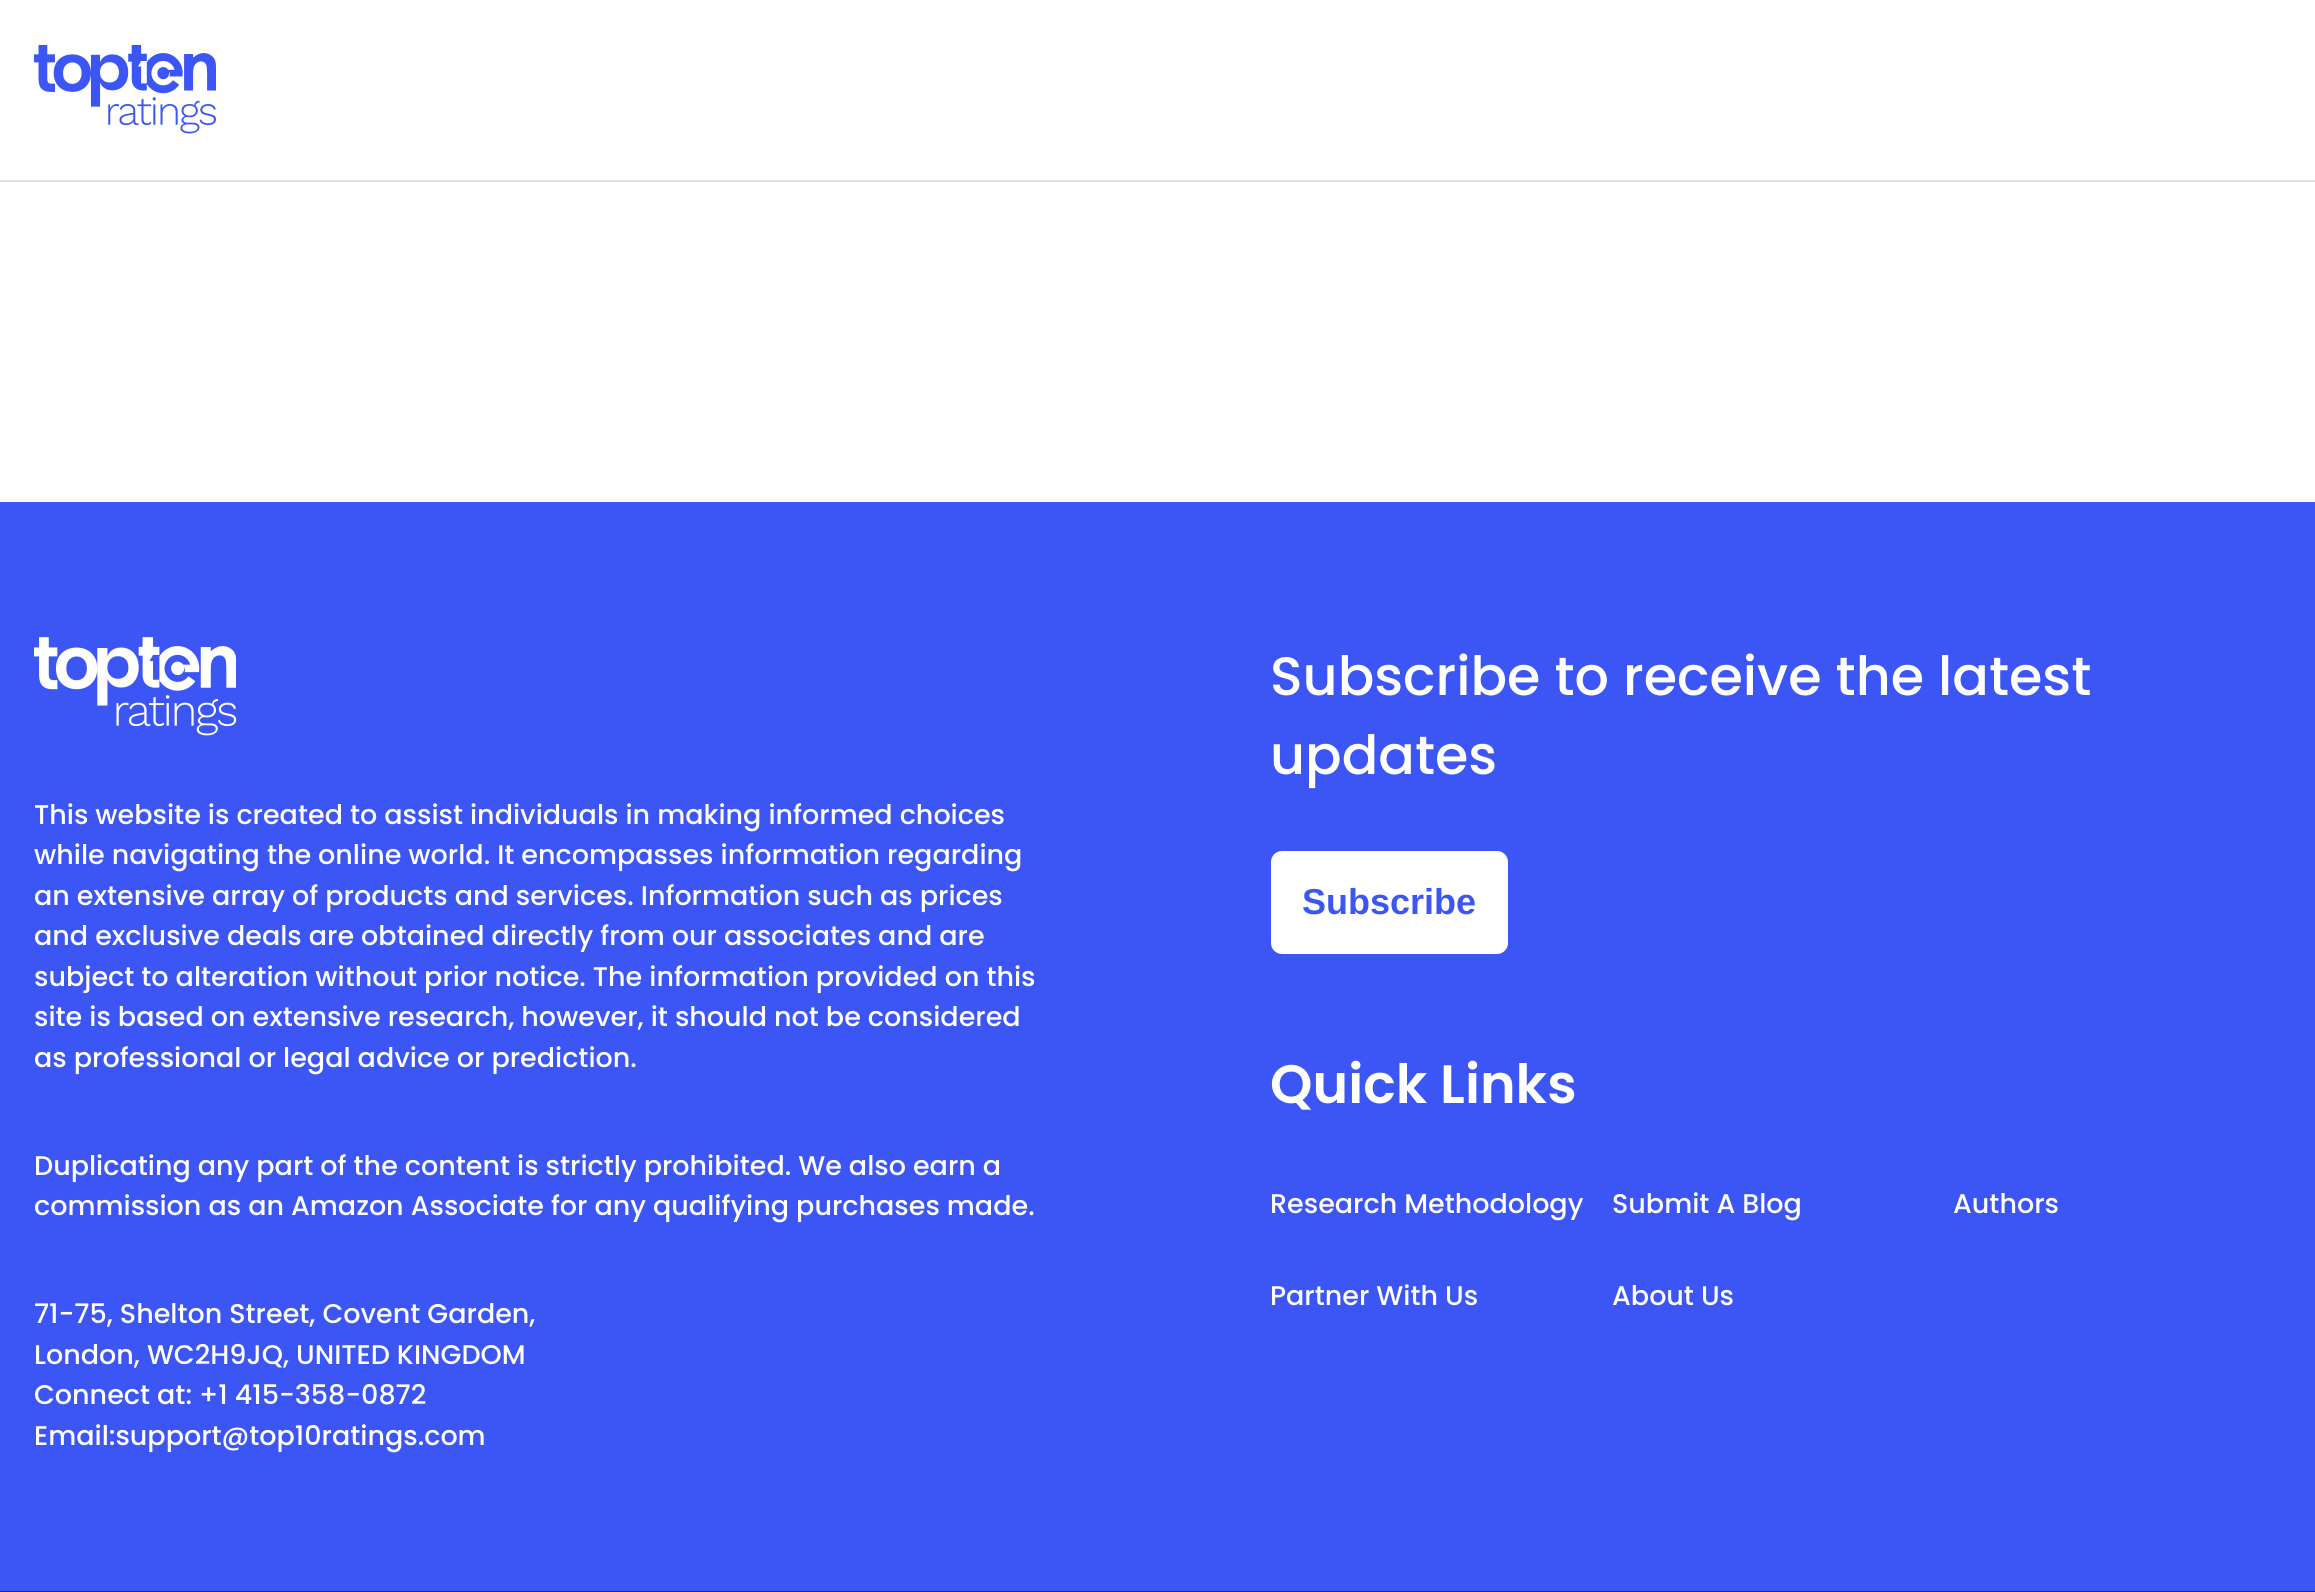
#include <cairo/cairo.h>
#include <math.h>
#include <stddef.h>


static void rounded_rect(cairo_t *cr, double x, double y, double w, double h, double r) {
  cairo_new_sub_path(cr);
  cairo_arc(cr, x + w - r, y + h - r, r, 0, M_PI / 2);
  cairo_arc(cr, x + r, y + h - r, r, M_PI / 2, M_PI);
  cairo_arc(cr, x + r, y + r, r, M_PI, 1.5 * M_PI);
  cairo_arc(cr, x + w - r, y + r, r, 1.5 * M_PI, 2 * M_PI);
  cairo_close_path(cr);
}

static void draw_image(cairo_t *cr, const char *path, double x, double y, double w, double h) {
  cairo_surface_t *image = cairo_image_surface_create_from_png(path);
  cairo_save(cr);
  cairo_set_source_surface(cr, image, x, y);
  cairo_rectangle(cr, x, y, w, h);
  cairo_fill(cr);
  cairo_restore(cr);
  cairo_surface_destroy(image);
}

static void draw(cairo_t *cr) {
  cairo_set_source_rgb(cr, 1, 1, 1);
  cairo_paint(cr);
  cairo_set_source_rgb(cr, 223 / 255.0, 223 / 255.0, 234 / 255.0);
  cairo_rectangle(cr, 0, 180, 2315, 2);
  cairo_fill(cr);
  draw_image(cr, "images/1.png", 34, 45, 182, 89);
  cairo_set_source_rgb(cr, 60 / 255.0, 86 / 255.0, 245 / 255.0);
  cairo_rectangle(cr, 0, 502, 2315, 1089);
  cairo_fill(cr);
  draw_image(cr, "images/2.png", 34, 637, 202, 99);
  cairo_set_source_rgb(cr, 1, 1, 1);
  rounded_rect(cr, 1271, 851, 237, 103, 11);
  cairo_fill(cr);
  cairo_set_source_rgb(cr, 42 / 255.0, 48 / 255.0, 54 / 255.0);
  cairo_rectangle(cr, 0, 1591, 2315, 1);
  cairo_fill(cr);
  cairo_select_font_face(cr, "Poppins Medium", CAIRO_FONT_SLANT_NORMAL, CAIRO_FONT_WEIGHT_NORMAL);
  cairo_set_font_size(cr, 27);
  cairo_set_source_rgb(cr, 1, 1, 1);
  cairo_move_to(cr, 34, 824);
  cairo_show_text(cr, "This website is created to assist individuals in making informed choices");
  cairo_move_to(cr, 34, 864);
  cairo_show_text(cr, "while navigating the online world. It encompasses information regarding");
  cairo_move_to(cr, 34, 905);
  cairo_show_text(cr, "an extensive array of products and services. Information such as prices");
  cairo_move_to(cr, 34, 945);
  cairo_show_text(cr, "and exclusive deals are obtained directly from our associates and are");
  cairo_move_to(cr, 34, 986);
  cairo_show_text(cr, "subject to alteration without prior notice. The information provided on this");
  cairo_move_to(cr, 34, 1026);
  cairo_show_text(cr, "site is based on extensive research, however, it should not be considered");
  cairo_move_to(cr, 34, 1067);
  cairo_show_text(cr, "as professional or legal advice or prediction.");
  cairo_move_to(cr, 34, 1175);
  cairo_show_text(cr, "Duplicating any part of the content is strictly prohibited. We also earn a");
  cairo_move_to(cr, 34, 1215);
  cairo_show_text(cr, "commission as an Amazon Associate for any qualifying purchases made.");
  cairo_move_to(cr, 34, 1323);
  cairo_show_text(cr, "71-75, Shelton Street, Covent Garden,");
  cairo_move_to(cr, 34, 1364);
  cairo_show_text(cr, "London, WC2H9JQ, UNITED KINGDOM");
  cairo_move_to(cr, 34, 1404);
  cairo_show_text(cr, "Connect at: +1 415-358-0872");
  cairo_move_to(cr, 34, 1445);
  cairo_show_text(cr, "Email:support@top10ratings.com");
  cairo_set_font_size(cr, 54);
  cairo_move_to(cr, 1270, 695);
  cairo_show_text(cr, "Subscribe to receive the latest");
  cairo_move_to(cr, 1270, 774);
  cairo_show_text(cr, "updates");
  cairo_select_font_face(cr, "Liberation Sans", CAIRO_FONT_SLANT_NORMAL, CAIRO_FONT_WEIGHT_BOLD);
  cairo_set_font_size(cr, 36);
  cairo_set_source_rgb(cr, 60 / 255.0, 86 / 255.0, 245 / 255.0);
  cairo_move_to(cr, 1302, 914);
  cairo_show_text(cr, "Subscribe");
  cairo_select_font_face(cr, "Poppins SemiBold", CAIRO_FONT_SLANT_NORMAL, CAIRO_FONT_WEIGHT_NORMAL);
  cairo_set_font_size(cr, 54);
  cairo_set_source_rgb(cr, 1, 1, 1);
  cairo_move_to(cr, 1270, 1103);
  cairo_show_text(cr, "Quick Links");
  cairo_select_font_face(cr, "Poppins Medium", CAIRO_FONT_SLANT_NORMAL, CAIRO_FONT_WEIGHT_NORMAL);
  cairo_set_font_size(cr, 27);
  cairo_move_to(cr, 1270, 1213);
  cairo_show_text(cr, "Research Methodology");
  cairo_move_to(cr, 1612, 1213);
  cairo_show_text(cr, "Submit A Blog");
  cairo_move_to(cr, 1953, 1213);
  cairo_show_text(cr, "Authors");
  cairo_move_to(cr, 1270, 1305);
  cairo_show_text(cr, "Partner With Us");
  cairo_move_to(cr, 1612, 1305);
  cairo_show_text(cr, "About Us");
}

int main(void) {
  cairo_surface_t *surface = cairo_image_surface_create(CAIRO_FORMAT_RGB24, 2315, 1592);
  cairo_t *cr = cairo_create(surface);
  cairo_font_options_t *options = cairo_font_options_create();
  cairo_font_options_set_hint_metrics(options, CAIRO_HINT_METRICS_OFF);
  cairo_font_options_set_hint_style(options, CAIRO_HINT_STYLE_NONE);
  cairo_set_font_options(cr, options);
  cairo_set_miter_limit(cr, 4);
  draw(cr);
  cairo_surface_write_to_png(surface, "out.png");
  cairo_font_options_destroy(options);
  cairo_destroy(cr);
  cairo_surface_destroy(surface);
  return 0;
}
